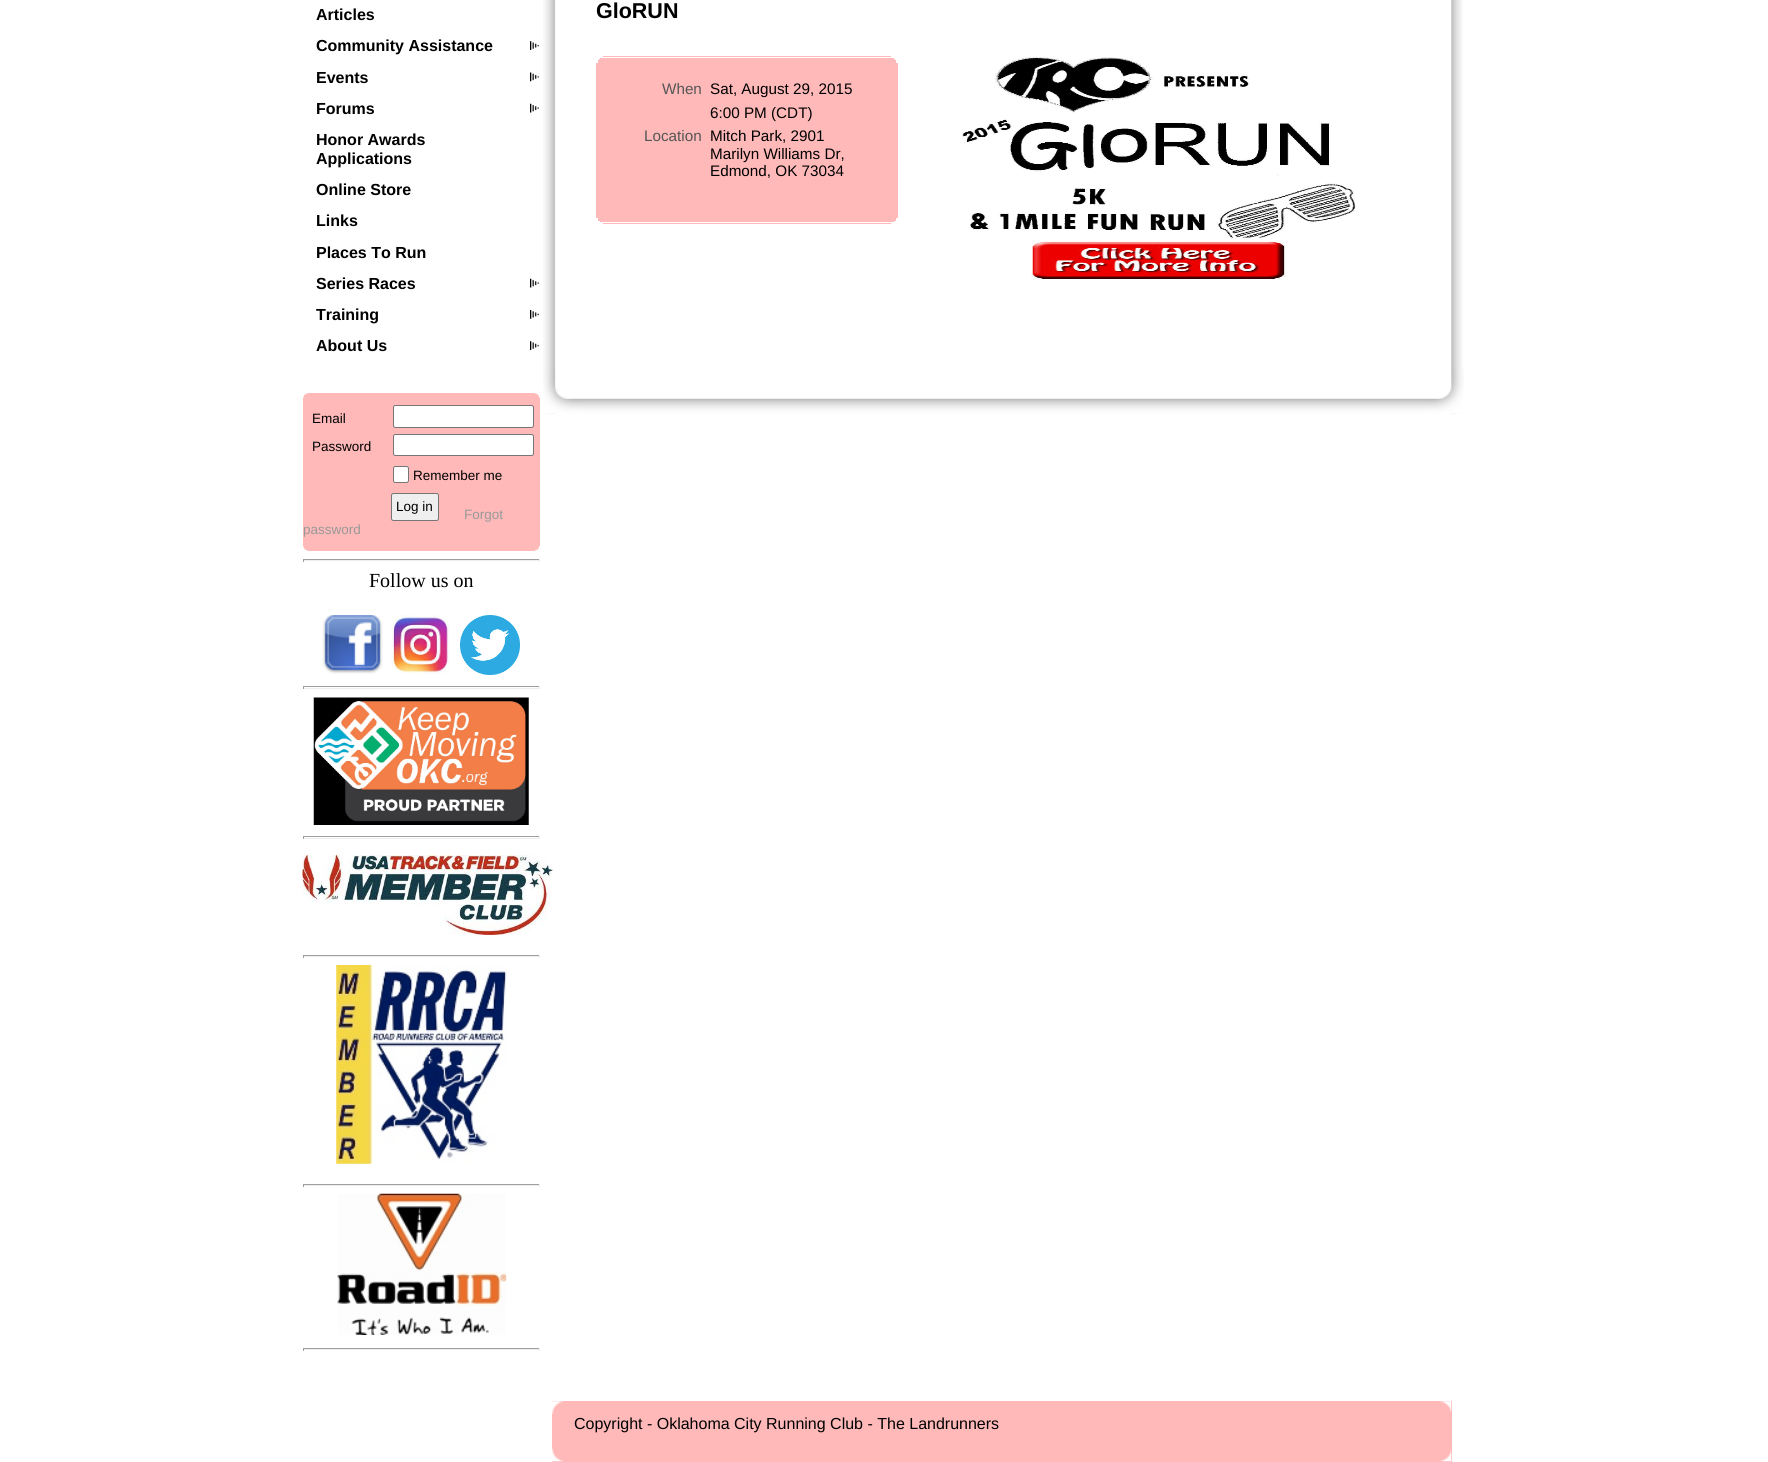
#include <cairo/cairo.h>
#include <math.h>
#include <stddef.h>


static void rounded_rect(cairo_t *cr, double x, double y, double w, double h, double r) {
  cairo_new_sub_path(cr);
  cairo_arc(cr, x + w - r, y + h - r, r, 0, M_PI / 2);
  cairo_arc(cr, x + r, y + h - r, r, M_PI / 2, M_PI);
  cairo_arc(cr, x + r, y + r, r, M_PI, 1.5 * M_PI);
  cairo_arc(cr, x + w - r, y + r, r, 1.5 * M_PI, 2 * M_PI);
  cairo_close_path(cr);
}

static void draw_image(cairo_t *cr, const char *path, double x, double y, double w, double h) {
  cairo_surface_t *image = cairo_image_surface_create_from_png(path);
  cairo_save(cr);
  cairo_set_source_surface(cr, image, x, y);
  cairo_rectangle(cr, x, y, w, h);
  cairo_fill(cr);
  cairo_restore(cr);
  cairo_surface_destroy(image);
}

static void draw(cairo_t *cr) {
  cairo_set_source_rgb(cr, 1, 1, 1);
  cairo_paint(cr);
  draw_image(cr, "images/1.png", 530, 41, 9, 9);
  draw_image(cr, "images/2.png", 530, 72, 9, 10);
  draw_image(cr, "images/3.png", 530, 103, 9, 10);
  draw_image(cr, "images/3.png", 530, 278, 9, 10);
  draw_image(cr, "images/4.png", 530, 310, 9, 9);
  draw_image(cr, "images/1.png", 530, 341, 9, 9);
  cairo_set_source_rgb(cr, 1, 185 / 255.0, 185 / 255.0);
  cairo_rectangle(cr, 303, 393, 237, 158);
  cairo_fill(cr);
  draw_image(cr, "images/5.png", 303, 393, 237, 5);
  draw_image(cr, "images/6.png", 303, 546, 237, 5);
  cairo_set_source_rgb(cr, 1, 1, 1);
  rounded_rect(cr, 393.5, 405.5, 140, 22, 2);
  cairo_fill_preserve(cr);
  cairo_set_source_rgb(cr, 118 / 255.0, 118 / 255.0, 118 / 255.0);
  cairo_set_line_width(cr, 1);
  cairo_stroke(cr);
  cairo_set_source_rgb(cr, 1, 1, 1);
  rounded_rect(cr, 393.5, 434.5, 140, 21, 2);
  cairo_fill_preserve(cr);
  cairo_set_source_rgb(cr, 118 / 255.0, 118 / 255.0, 118 / 255.0);
  cairo_stroke(cr);
  cairo_set_source_rgb(cr, 1, 1, 1);
  rounded_rect(cr, 393.5, 466.5, 15, 16, 2);
  cairo_fill_preserve(cr);
  cairo_set_source_rgb(cr, 118 / 255.0, 118 / 255.0, 118 / 255.0);
  cairo_stroke(cr);
  cairo_set_source_rgb(cr, 239 / 255.0, 239 / 255.0, 239 / 255.0);
  rounded_rect(cr, 391.5, 493.5, 47, 27, 2);
  cairo_fill_preserve(cr);
  cairo_set_source_rgb(cr, 118 / 255.0, 118 / 255.0, 118 / 255.0);
  cairo_stroke(cr);
  cairo_set_source_rgb(cr, 159 / 255.0, 159 / 255.0, 159 / 255.0);
  cairo_rectangle(cr, 303, 559, 237, 1);
  cairo_fill(cr);
  cairo_set_source_rgb(cr, 238 / 255.0, 238 / 255.0, 238 / 255.0);
  cairo_rectangle(cr, 539, 559, 1, 3);
  cairo_fill(cr);
  cairo_rectangle(cr, 303, 560, 237, 1);
  cairo_fill(cr);
  cairo_set_source_rgb(cr, 159 / 255.0, 159 / 255.0, 159 / 255.0);
  cairo_rectangle(cr, 303, 559, 1, 3);
  cairo_fill(cr);
  draw_image(cr, "images/7.png", 322, 615, 61, 59);
  draw_image(cr, "images/8.png", 391, 615, 59, 59);
  draw_image(cr, "images/9.png", 460, 615, 60, 60);
  cairo_rectangle(cr, 303, 686, 237, 1);
  cairo_fill(cr);
  cairo_set_source_rgb(cr, 238 / 255.0, 238 / 255.0, 238 / 255.0);
  cairo_rectangle(cr, 539, 686, 1, 3);
  cairo_fill(cr);
  cairo_rectangle(cr, 303, 688, 237, 1);
  cairo_fill(cr);
  cairo_set_source_rgb(cr, 159 / 255.0, 159 / 255.0, 159 / 255.0);
  cairo_rectangle(cr, 303, 686, 1, 3);
  cairo_fill(cr);
  draw_image(cr, "images/10.png", 313, 697, 216, 128);
  cairo_rectangle(cr, 303, 836, 237, 1);
  cairo_fill(cr);
  cairo_set_source_rgb(cr, 238 / 255.0, 238 / 255.0, 238 / 255.0);
  cairo_rectangle(cr, 539, 836, 1, 3);
  cairo_fill(cr);
  cairo_rectangle(cr, 303, 838, 237, 1);
  cairo_fill(cr);
  cairo_set_source_rgb(cr, 159 / 255.0, 159 / 255.0, 159 / 255.0);
  cairo_rectangle(cr, 303, 836, 1, 3);
  cairo_fill(cr);
  draw_image(cr, "images/11.png", 302, 855, 251, 80);
  cairo_rectangle(cr, 303, 955, 237, 1);
  cairo_fill(cr);
  cairo_set_source_rgb(cr, 238 / 255.0, 238 / 255.0, 238 / 255.0);
  cairo_rectangle(cr, 539, 955, 1, 3);
  cairo_fill(cr);
  cairo_rectangle(cr, 303, 956, 237, 1);
  cairo_fill(cr);
  cairo_set_source_rgb(cr, 159 / 255.0, 159 / 255.0, 159 / 255.0);
  cairo_rectangle(cr, 303, 955, 1, 3);
  cairo_fill(cr);
  draw_image(cr, "images/12.png", 336, 965, 171, 199);
  cairo_rectangle(cr, 303, 1184, 237, 1);
  cairo_fill(cr);
  cairo_set_source_rgb(cr, 238 / 255.0, 238 / 255.0, 238 / 255.0);
  cairo_rectangle(cr, 539, 1184, 1, 3);
  cairo_fill(cr);
  cairo_rectangle(cr, 303, 1185, 237, 1);
  cairo_fill(cr);
  cairo_set_source_rgb(cr, 159 / 255.0, 159 / 255.0, 159 / 255.0);
  cairo_rectangle(cr, 303, 1184, 1, 3);
  cairo_fill(cr);
  draw_image(cr, "images/13.png", 337, 1193, 170, 142);
  cairo_rectangle(cr, 303, 1348, 237, 1);
  cairo_fill(cr);
  cairo_set_source_rgb(cr, 238 / 255.0, 238 / 255.0, 238 / 255.0);
  cairo_rectangle(cr, 539, 1348, 1, 3);
  cairo_fill(cr);
  cairo_rectangle(cr, 303, 1349, 237, 1);
  cairo_fill(cr);
  cairo_set_source_rgb(cr, 159 / 255.0, 159 / 255.0, 159 / 255.0);
  cairo_rectangle(cr, 303, 1348, 1, 3);
  cairo_fill(cr);
  draw_image(cr, "images/14.png", 543, 0, 920, 414);
  draw_image(cr, "images/15.png", 543, 368, 921, 46);
  cairo_set_source_rgb(cr, 1, 185 / 255.0, 185 / 255.0);
  cairo_rectangle(cr, 603, 56, 288, 1);
  cairo_fill(cr);
  cairo_rectangle(cr, 600, 58, 294, 1);
  cairo_fill(cr);
  cairo_rectangle(cr, 599, 59, 296, 1);
  cairo_fill(cr);
  cairo_rectangle(cr, 598, 60, 298, 3);
  cairo_fill(cr);
  cairo_rectangle(cr, 596, 63, 302, 155);
  cairo_fill(cr);
  cairo_rectangle(cr, 598, 218, 298, 3);
  cairo_fill(cr);
  cairo_rectangle(cr, 600, 221, 294, 1);
  cairo_fill(cr);
  cairo_rectangle(cr, 603, 223, 288, 1);
  cairo_fill(cr);
  draw_image(cr, "images/16.png", 962, 57, 394, 181);
  draw_image(cr, "images/17.png", 1031, 241, 256, 39);
  cairo_rectangle(cr, 552, 1401, 900, 61);
  cairo_fill(cr);
  draw_image(cr, "images/18.png", 552, 1401, 900, 13);
  draw_image(cr, "images/19.png", 552, 1448, 900, 14);
  cairo_select_font_face(cr, "Liberation Sans", CAIRO_FONT_SLANT_NORMAL, CAIRO_FONT_WEIGHT_BOLD);
  cairo_set_font_size(cr, 16);
  cairo_set_source_rgb(cr, 0, 0, 0);
  cairo_move_to(cr, 316, 20);
  cairo_show_text(cr, "Articles");
  cairo_move_to(cr, 316, 51);
  cairo_show_text(cr, "Community Assistance");
  cairo_move_to(cr, 316, 83);
  cairo_show_text(cr, "Events");
  cairo_move_to(cr, 316, 114);
  cairo_show_text(cr, "Forums");
  cairo_move_to(cr, 316, 145);
  cairo_show_text(cr, "Honor Awards");
  cairo_move_to(cr, 316, 164);
  cairo_show_text(cr, "Applications");
  cairo_move_to(cr, 316, 195);
  cairo_show_text(cr, "Online Store");
  cairo_move_to(cr, 316, 226);
  cairo_show_text(cr, "Links");
  cairo_move_to(cr, 316, 258);
  cairo_show_text(cr, "Places To Run");
  cairo_move_to(cr, 316, 289);
  cairo_show_text(cr, "Series Races");
  cairo_move_to(cr, 316, 320);
  cairo_show_text(cr, "Training");
  cairo_move_to(cr, 316, 351);
  cairo_show_text(cr, "About Us");
  cairo_select_font_face(cr, "Liberation Sans", CAIRO_FONT_SLANT_NORMAL, CAIRO_FONT_WEIGHT_NORMAL);
  cairo_set_font_size(cr, 13.5);
  cairo_move_to(cr, 312, 423);
  cairo_show_text(cr, "Email");
  cairo_move_to(cr, 312, 451);
  cairo_show_text(cr, "Password");
  cairo_move_to(cr, 413, 480);
  cairo_show_text(cr, "Remember me");
  cairo_move_to(cr, 396, 511);
  cairo_show_text(cr, "Log in");
  cairo_set_source_rgb(cr, 153 / 255.0, 153 / 255.0, 153 / 255.0);
  cairo_move_to(cr, 464, 519);
  cairo_show_text(cr, "Forgot");
  cairo_move_to(cr, 303, 534);
  cairo_show_text(cr, "password");
  cairo_select_font_face(cr, "Liberation Serif", CAIRO_FONT_SLANT_NORMAL, CAIRO_FONT_WEIGHT_NORMAL);
  cairo_set_font_size(cr, 20);
  cairo_set_source_rgb(cr, 0, 0, 0);
  cairo_move_to(cr, 369, 587);
  cairo_show_text(cr, "Follow us on");
  cairo_select_font_face(cr, "Liberation Sans", CAIRO_FONT_SLANT_NORMAL, CAIRO_FONT_WEIGHT_BOLD);
  cairo_set_font_size(cr, 21.5);
  cairo_move_to(cr, 596, 18);
  cairo_show_text(cr, "GloRUN");
  cairo_select_font_face(cr, "Liberation Sans", CAIRO_FONT_SLANT_NORMAL, CAIRO_FONT_WEIGHT_NORMAL);
  cairo_set_font_size(cr, 15.25);
  cairo_set_source_rgb(cr, 85 / 255.0, 85 / 255.0, 85 / 255.0);
  cairo_move_to(cr, 662, 94);
  cairo_show_text(cr, "When");
  cairo_set_source_rgb(cr, 0, 0, 0);
  cairo_move_to(cr, 710, 94);
  cairo_show_text(cr, "Sat, August 29, 2015");
  cairo_move_to(cr, 710, 118);
  cairo_show_text(cr, "6:00 PM (CDT)");
  cairo_set_source_rgb(cr, 85 / 255.0, 85 / 255.0, 85 / 255.0);
  cairo_move_to(cr, 644, 141);
  cairo_show_text(cr, "Location");
  cairo_set_source_rgb(cr, 0, 0, 0);
  cairo_move_to(cr, 710, 141);
  cairo_show_text(cr, "Mitch Park, 2901");
  cairo_move_to(cr, 710, 159);
  cairo_show_text(cr, "Marilyn Williams Dr,");
  cairo_move_to(cr, 710, 176);
  cairo_show_text(cr, "Edmond, OK 73034");
  cairo_set_font_size(cr, 16);
  cairo_move_to(cr, 574, 1429);
  cairo_show_text(cr, "Copyright - Oklahoma City Running Club - The Landrunners");
}

int main(void) {
  cairo_surface_t *surface = cairo_image_surface_create(CAIRO_FORMAT_RGB24, 1768, 1462);
  cairo_t *cr = cairo_create(surface);
  cairo_font_options_t *options = cairo_font_options_create();
  cairo_font_options_set_hint_metrics(options, CAIRO_HINT_METRICS_OFF);
  cairo_font_options_set_hint_style(options, CAIRO_HINT_STYLE_NONE);
  cairo_set_font_options(cr, options);
  cairo_set_miter_limit(cr, 4);
  draw(cr);
  cairo_surface_write_to_png(surface, "out.png");
  cairo_font_options_destroy(options);
  cairo_destroy(cr);
  cairo_surface_destroy(surface);
  return 0;
}
